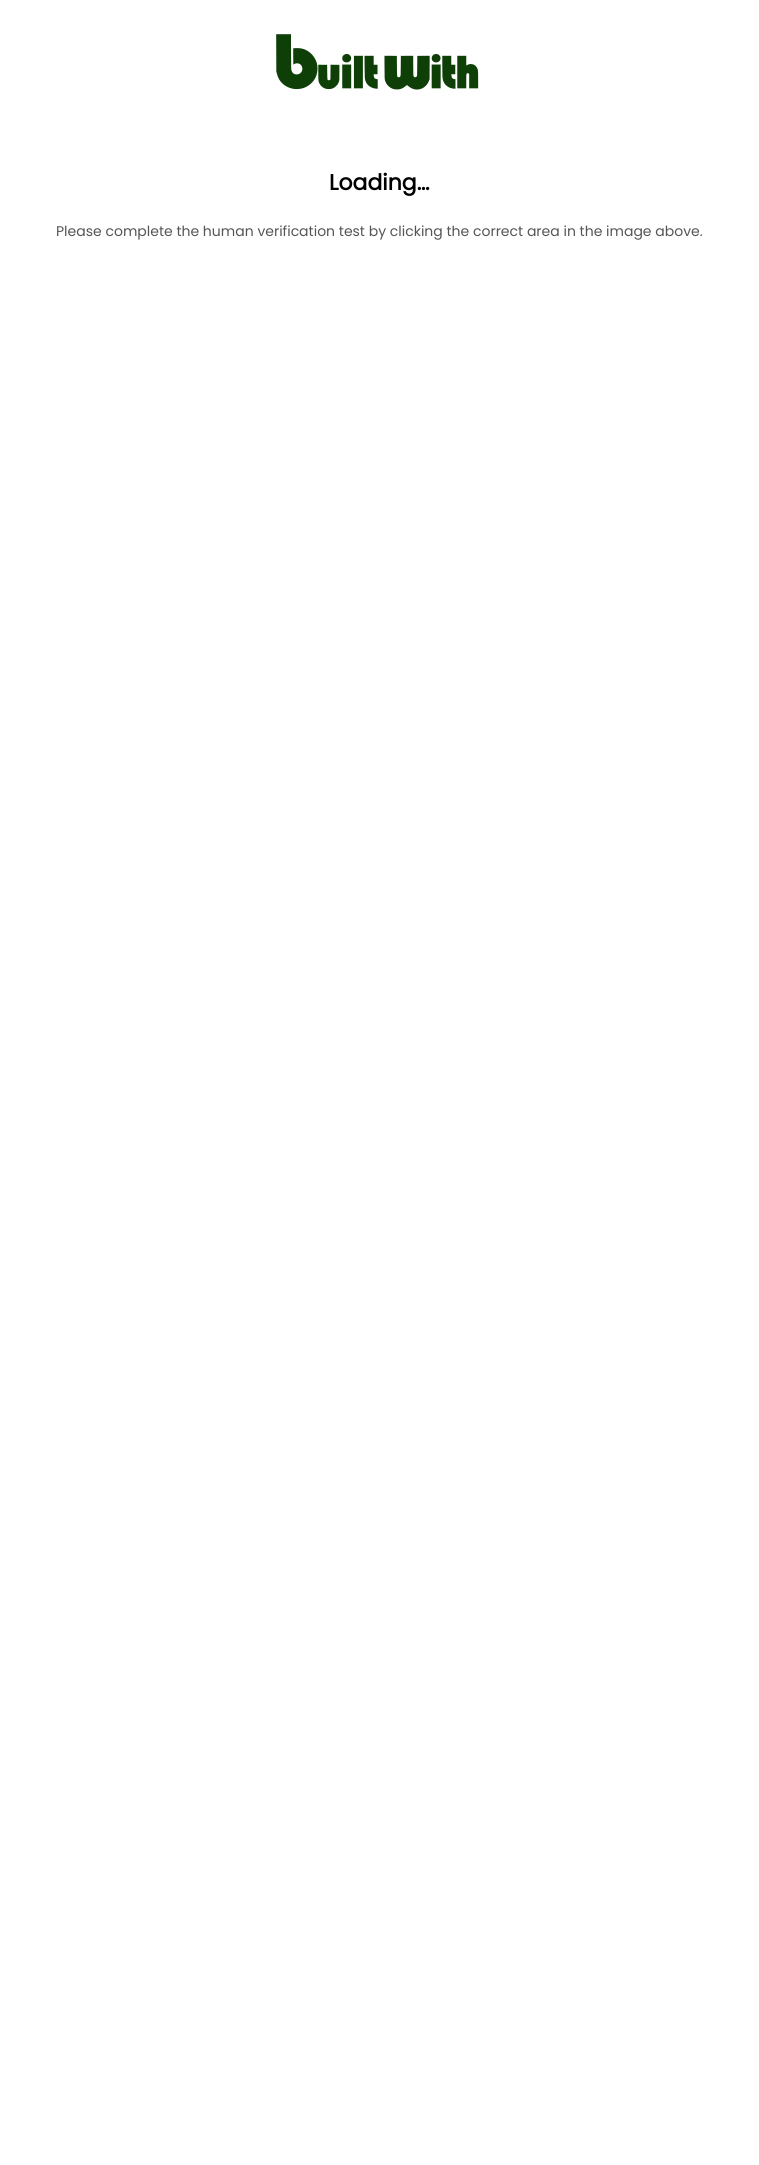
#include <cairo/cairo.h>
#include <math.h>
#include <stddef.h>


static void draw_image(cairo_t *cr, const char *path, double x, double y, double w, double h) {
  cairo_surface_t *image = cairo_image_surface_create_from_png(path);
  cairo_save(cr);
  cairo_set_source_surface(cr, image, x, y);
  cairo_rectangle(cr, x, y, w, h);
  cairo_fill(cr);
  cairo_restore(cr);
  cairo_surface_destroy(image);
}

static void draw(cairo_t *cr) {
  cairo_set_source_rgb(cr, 1, 1, 1);
  cairo_paint(cr);
  draw_image(cr, "images/1.png", 276, 34, 203, 56);
  cairo_select_font_face(cr, "Poppins", CAIRO_FONT_SLANT_NORMAL, CAIRO_FONT_WEIGHT_BOLD);
  cairo_set_font_size(cr, 22);
  cairo_set_source_rgb(cr, 0, 0, 0);
  cairo_move_to(cr, 329, 190);
  cairo_show_text(cr, "Loading…");
  cairo_select_font_face(cr, "Poppins", CAIRO_FONT_SLANT_NORMAL, CAIRO_FONT_WEIGHT_NORMAL);
  cairo_set_font_size(cr, 14);
  cairo_set_source_rgb(cr, 85 / 255.0, 85 / 255.0, 85 / 255.0);
  cairo_move_to(cr, 56, 236);
  cairo_show_text(cr, "Please complete the human verification test by clicking the correct area in the image above.");
}

int main(void) {
  cairo_surface_t *surface = cairo_image_surface_create(CAIRO_FORMAT_RGB24, 759, 2165);
  cairo_t *cr = cairo_create(surface);
  cairo_font_options_t *options = cairo_font_options_create();
  cairo_font_options_set_hint_metrics(options, CAIRO_HINT_METRICS_OFF);
  cairo_font_options_set_hint_style(options, CAIRO_HINT_STYLE_NONE);
  cairo_set_font_options(cr, options);
  cairo_set_miter_limit(cr, 4);
  draw(cr);
  cairo_surface_write_to_png(surface, "out.png");
  cairo_font_options_destroy(options);
  cairo_destroy(cr);
  cairo_surface_destroy(surface);
  return 0;
}
